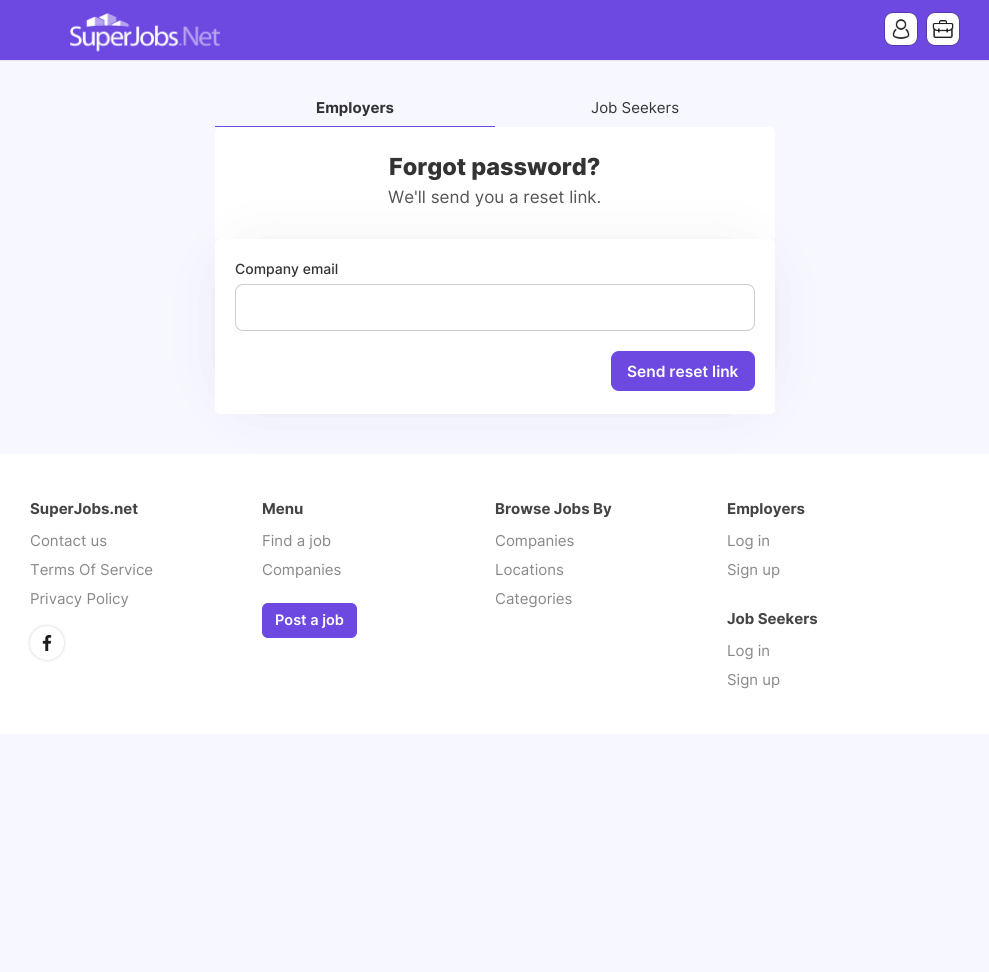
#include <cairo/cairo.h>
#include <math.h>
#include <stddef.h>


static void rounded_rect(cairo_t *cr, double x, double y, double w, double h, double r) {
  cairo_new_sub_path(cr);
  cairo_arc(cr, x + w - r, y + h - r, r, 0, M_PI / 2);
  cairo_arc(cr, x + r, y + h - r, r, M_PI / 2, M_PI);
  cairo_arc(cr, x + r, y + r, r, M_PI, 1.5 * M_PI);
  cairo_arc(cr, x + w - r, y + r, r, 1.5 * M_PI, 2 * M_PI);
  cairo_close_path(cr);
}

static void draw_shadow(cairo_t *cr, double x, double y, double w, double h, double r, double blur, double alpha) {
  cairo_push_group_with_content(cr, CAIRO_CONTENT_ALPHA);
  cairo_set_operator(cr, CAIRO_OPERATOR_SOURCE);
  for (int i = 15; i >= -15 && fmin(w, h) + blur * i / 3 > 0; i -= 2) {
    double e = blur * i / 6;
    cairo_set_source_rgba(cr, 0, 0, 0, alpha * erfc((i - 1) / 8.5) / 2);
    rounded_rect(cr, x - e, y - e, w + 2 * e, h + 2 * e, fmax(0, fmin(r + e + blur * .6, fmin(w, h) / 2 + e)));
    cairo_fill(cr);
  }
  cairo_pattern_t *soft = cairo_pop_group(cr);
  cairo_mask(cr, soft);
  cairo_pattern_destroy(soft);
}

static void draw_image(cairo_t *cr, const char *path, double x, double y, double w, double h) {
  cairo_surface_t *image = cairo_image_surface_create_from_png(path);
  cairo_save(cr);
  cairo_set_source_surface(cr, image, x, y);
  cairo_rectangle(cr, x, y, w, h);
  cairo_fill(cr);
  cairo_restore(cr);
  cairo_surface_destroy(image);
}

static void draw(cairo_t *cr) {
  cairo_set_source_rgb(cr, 246 / 255.0, 247 / 255.0, 1);
  cairo_paint(cr);
  cairo_set_source_rgb(cr, 0, 0, 0);
  draw_shadow(cr, 0, 0, 989, 60, 0, 1, 0.2);
  cairo_set_source_rgb(cr, 109 / 255.0, 72 / 255.0, 225 / 255.0);
  cairo_rectangle(cr, 0, 0, 989, 60);
  cairo_fill(cr);
  draw_image(cr, "images/1.png", 70, 13, 150, 39);
  cairo_set_source_rgb(cr, 0, 0, 0);
  draw_shadow(cr, 885, 13, 32, 32, 8, 0.5, 0.9);
  cairo_set_source_rgb(cr, 1, 1, 1);
  rounded_rect(cr, 885, 13, 32, 32, 8);
  cairo_fill(cr);
  draw_image(cr, "images/2.png", 892, 19, 18, 20);
  cairo_set_source_rgb(cr, 0, 0, 0);
  draw_shadow(cr, 927, 13, 32, 32, 8, 0.5, 0.9);
  cairo_set_source_rgb(cr, 1, 1, 1);
  rounded_rect(cr, 927, 13, 32, 32, 8);
  cairo_fill(cr);
  draw_image(cr, "images/3.png", 932, 20, 22, 18);
  cairo_set_source_rgb(cr, 109 / 255.0, 72 / 255.0, 225 / 255.0);
  cairo_rectangle(cr, 215, 126, 280, 1);
  cairo_fill(cr);
  cairo_set_source_rgb(cr, 1, 1, 1);
  cairo_new_path(cr);
  cairo_move_to(cr, 221, 127);
  cairo_line_to(cr, 769, 127);
  cairo_curve_to(cr, 772.5, 127, 775, 129.5, 775, 133);
  cairo_line_to(cr, 775, 239);
  cairo_line_to(cr, 215, 239);
  cairo_line_to(cr, 215, 133);
  cairo_curve_to(cr, 215, 129.5, 217.5, 127, 221, 127);
  cairo_close_path(cr);
  cairo_fill(cr);
  cairo_rectangle(cr, 0, 454, 989, 280);
  cairo_fill(cr);
  cairo_set_source_rgb(cr, 0, 0, 0);
  draw_shadow(cr, 255, 279, 480, 95, 0, 37.5, 0.2);
  cairo_set_source_rgb(cr, 1, 1, 1);
  rounded_rect(cr, 215, 239, 560, 175, 5);
  cairo_fill(cr);
  rounded_rect(cr, 235.5, 284.5, 519, 46, 7.5);
  cairo_set_source_rgb(cr, 204 / 255.0, 204 / 255.0, 204 / 255.0);
  cairo_set_line_width(cr, 1);
  cairo_stroke(cr);
  cairo_set_source_rgb(cr, 109 / 255.0, 72 / 255.0, 225 / 255.0);
  rounded_rect(cr, 611.5, 351.5, 143, 39, 7.5);
  cairo_fill_preserve(cr);
  cairo_stroke(cr);
  cairo_set_source_rgb(cr, 0, 0, 0);
  draw_shadow(cr, 30, 626, 34, 34, 17, 1.5, 0.2);
  cairo_set_source_rgb(cr, 1, 1, 1);
  cairo_arc(cr, 47, 643, 17, 0, 2 * M_PI);
  cairo_fill(cr);
  draw_image(cr, "images/4.png", 42, 635, 10, 16);
  cairo_set_source_rgb(cr, 109 / 255.0, 72 / 255.0, 225 / 255.0);
  rounded_rect(cr, 262.5, 603.5, 94, 34, 5.5);
  cairo_fill_preserve(cr);
  cairo_stroke(cr);
  cairo_select_font_face(cr, "Inter", CAIRO_FONT_SLANT_NORMAL, CAIRO_FONT_WEIGHT_BOLD);
  cairo_set_font_size(cr, 15);
  cairo_set_source_rgb(cr, 51 / 255.0, 51 / 255.0, 51 / 255.0);
  cairo_move_to(cr, 316, 113);
  cairo_show_text(cr, "Employers");
  cairo_select_font_face(cr, "Inter", CAIRO_FONT_SLANT_NORMAL, CAIRO_FONT_WEIGHT_NORMAL);
  cairo_move_to(cr, 591, 113);
  cairo_show_text(cr, "Job Seekers");
  cairo_select_font_face(cr, "Inter ExtraBold", CAIRO_FONT_SLANT_NORMAL, CAIRO_FONT_WEIGHT_NORMAL);
  cairo_set_font_size(cr, 23.5);
  cairo_move_to(cr, 389, 175);
  cairo_show_text(cr, "Forgot password?");
  cairo_select_font_face(cr, "Inter", CAIRO_FONT_SLANT_NORMAL, CAIRO_FONT_WEIGHT_NORMAL);
  cairo_set_font_size(cr, 17);
  cairo_set_source_rgb(cr, 85 / 255.0, 85 / 255.0, 85 / 255.0);
  cairo_move_to(cr, 388, 203);
  cairo_show_text(cr, "We'll send you a reset link.");
  cairo_select_font_face(cr, "Inter Medium", CAIRO_FONT_SLANT_NORMAL, CAIRO_FONT_WEIGHT_NORMAL);
  cairo_set_font_size(cr, 14);
  cairo_set_source_rgb(cr, 51 / 255.0, 51 / 255.0, 51 / 255.0);
  cairo_move_to(cr, 235, 274);
  cairo_show_text(cr, "Company email");
  cairo_select_font_face(cr, "Inter SemiBold", CAIRO_FONT_SLANT_NORMAL, CAIRO_FONT_WEIGHT_NORMAL);
  cairo_set_font_size(cr, 15.5);
  cairo_set_source_rgb(cr, 1, 1, 1);
  cairo_move_to(cr, 627, 377);
  cairo_show_text(cr, "Send reset link");
  cairo_select_font_face(cr, "Inter", CAIRO_FONT_SLANT_NORMAL, CAIRO_FONT_WEIGHT_BOLD);
  cairo_set_font_size(cr, 15);
  cairo_set_source_rgb(cr, 68 / 255.0, 68 / 255.0, 68 / 255.0);
  cairo_move_to(cr, 30, 514);
  cairo_show_text(cr, "SuperJobs.net");
  cairo_select_font_face(cr, "Inter", CAIRO_FONT_SLANT_NORMAL, CAIRO_FONT_WEIGHT_NORMAL);
  cairo_set_source_rgb(cr, 136 / 255.0, 136 / 255.0, 136 / 255.0);
  cairo_move_to(cr, 30, 546);
  cairo_show_text(cr, "Contact us");
  cairo_move_to(cr, 30, 575);
  cairo_show_text(cr, "Terms Of Service");
  cairo_move_to(cr, 30, 604);
  cairo_show_text(cr, "Privacy Policy");
  cairo_select_font_face(cr, "Inter", CAIRO_FONT_SLANT_NORMAL, CAIRO_FONT_WEIGHT_BOLD);
  cairo_set_source_rgb(cr, 68 / 255.0, 68 / 255.0, 68 / 255.0);
  cairo_move_to(cr, 262, 514);
  cairo_show_text(cr, "Menu");
  cairo_select_font_face(cr, "Inter", CAIRO_FONT_SLANT_NORMAL, CAIRO_FONT_WEIGHT_NORMAL);
  cairo_set_source_rgb(cr, 136 / 255.0, 136 / 255.0, 136 / 255.0);
  cairo_move_to(cr, 262, 546);
  cairo_show_text(cr, "Find a job");
  cairo_move_to(cr, 262, 575);
  cairo_show_text(cr, "Companies");
  cairo_select_font_face(cr, "Inter SemiBold", CAIRO_FONT_SLANT_NORMAL, CAIRO_FONT_WEIGHT_NORMAL);
  cairo_set_font_size(cr, 14.5);
  cairo_set_source_rgb(cr, 1, 1, 1);
  cairo_move_to(cr, 275, 625);
  cairo_show_text(cr, "Post a job");
  cairo_select_font_face(cr, "Inter", CAIRO_FONT_SLANT_NORMAL, CAIRO_FONT_WEIGHT_BOLD);
  cairo_set_font_size(cr, 15);
  cairo_set_source_rgb(cr, 68 / 255.0, 68 / 255.0, 68 / 255.0);
  cairo_move_to(cr, 495, 514);
  cairo_show_text(cr, "Browse Jobs By");
  cairo_select_font_face(cr, "Inter", CAIRO_FONT_SLANT_NORMAL, CAIRO_FONT_WEIGHT_NORMAL);
  cairo_set_source_rgb(cr, 136 / 255.0, 136 / 255.0, 136 / 255.0);
  cairo_move_to(cr, 495, 546);
  cairo_show_text(cr, "Companies");
  cairo_move_to(cr, 495, 575);
  cairo_show_text(cr, "Locations");
  cairo_move_to(cr, 495, 604);
  cairo_show_text(cr, "Categories");
  cairo_select_font_face(cr, "Inter", CAIRO_FONT_SLANT_NORMAL, CAIRO_FONT_WEIGHT_BOLD);
  cairo_set_source_rgb(cr, 68 / 255.0, 68 / 255.0, 68 / 255.0);
  cairo_move_to(cr, 727, 514);
  cairo_show_text(cr, "Employers");
  cairo_select_font_face(cr, "Inter", CAIRO_FONT_SLANT_NORMAL, CAIRO_FONT_WEIGHT_NORMAL);
  cairo_set_source_rgb(cr, 136 / 255.0, 136 / 255.0, 136 / 255.0);
  cairo_move_to(cr, 727, 546);
  cairo_show_text(cr, "Log in");
  cairo_move_to(cr, 727, 575);
  cairo_show_text(cr, "Sign up");
  cairo_select_font_face(cr, "Inter", CAIRO_FONT_SLANT_NORMAL, CAIRO_FONT_WEIGHT_BOLD);
  cairo_set_source_rgb(cr, 68 / 255.0, 68 / 255.0, 68 / 255.0);
  cairo_move_to(cr, 727, 624);
  cairo_show_text(cr, "Job Seekers");
  cairo_select_font_face(cr, "Inter", CAIRO_FONT_SLANT_NORMAL, CAIRO_FONT_WEIGHT_NORMAL);
  cairo_set_source_rgb(cr, 136 / 255.0, 136 / 255.0, 136 / 255.0);
  cairo_move_to(cr, 727, 656);
  cairo_show_text(cr, "Log in");
  cairo_move_to(cr, 727, 685);
  cairo_show_text(cr, "Sign up");
}

int main(void) {
  cairo_surface_t *surface = cairo_image_surface_create(CAIRO_FORMAT_RGB24, 989, 972);
  cairo_t *cr = cairo_create(surface);
  cairo_font_options_t *options = cairo_font_options_create();
  cairo_font_options_set_hint_metrics(options, CAIRO_HINT_METRICS_OFF);
  cairo_font_options_set_hint_style(options, CAIRO_HINT_STYLE_NONE);
  cairo_set_font_options(cr, options);
  cairo_set_miter_limit(cr, 4);
  draw(cr);
  cairo_surface_write_to_png(surface, "out.png");
  cairo_font_options_destroy(options);
  cairo_destroy(cr);
  cairo_surface_destroy(surface);
  return 0;
}
